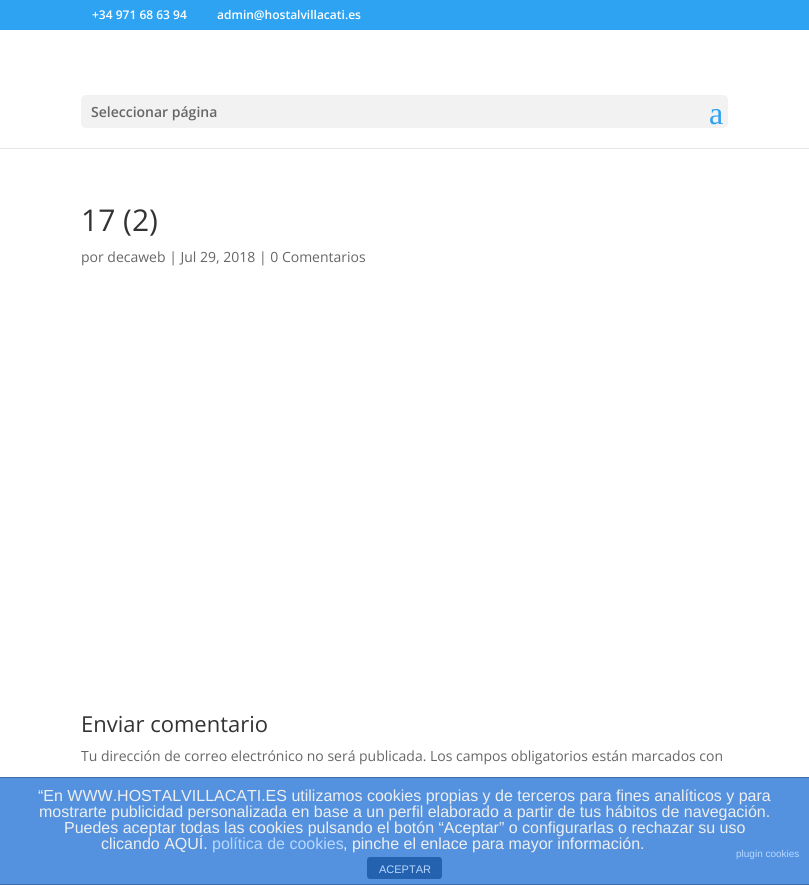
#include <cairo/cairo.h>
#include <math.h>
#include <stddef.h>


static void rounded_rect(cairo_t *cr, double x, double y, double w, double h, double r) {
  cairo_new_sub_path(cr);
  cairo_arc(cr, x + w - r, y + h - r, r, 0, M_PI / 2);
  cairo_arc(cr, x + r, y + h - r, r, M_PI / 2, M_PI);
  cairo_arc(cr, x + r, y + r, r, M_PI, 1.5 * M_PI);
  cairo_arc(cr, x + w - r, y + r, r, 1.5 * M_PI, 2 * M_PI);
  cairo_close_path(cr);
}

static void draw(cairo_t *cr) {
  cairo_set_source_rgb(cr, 1, 1, 1);
  cairo_paint(cr);
  cairo_set_source_rgb(cr, 46 / 255.0, 163 / 255.0, 242 / 255.0);
  cairo_rectangle(cr, 0, 0, 809, 30);
  cairo_fill(cr);
  cairo_set_source_rgb(cr, 230 / 255.0, 230 / 255.0, 230 / 255.0);
  cairo_rectangle(cr, 0, 148, 809, 1);
  cairo_fill(cr);
  cairo_set_source_rgb(cr, 242 / 255.0, 242 / 255.0, 242 / 255.0);
  rounded_rect(cr, 81, 95, 647, 33, 5);
  cairo_fill(cr);
  cairo_set_source_rgb(cr, 84 / 255.0, 146 / 255.0, 224 / 255.0);
  cairo_rectangle(cr, 0, 778, 809, 106);
  cairo_fill(cr);
  cairo_set_source_rgb(cr, 63 / 255.0, 109 / 255.0, 167 / 255.0);
  cairo_rectangle(cr, 0, 777, 809, 1);
  cairo_fill(cr);
  cairo_rectangle(cr, 0, 884, 809, 1);
  cairo_fill(cr);
  cairo_set_source_rgb(cr, 36 / 255.0, 98 / 255.0, 176 / 255.0);
  rounded_rect(cr, 367, 857, 75, 22, 3);
  cairo_fill(cr);
  cairo_select_font_face(cr, "Open Sans SemiBold", CAIRO_FONT_SLANT_NORMAL, CAIRO_FONT_WEIGHT_NORMAL);
  cairo_set_font_size(cr, 12);
  cairo_set_source_rgb(cr, 1, 1, 1);
  cairo_move_to(cr, 92, 19);
  cairo_show_text(cr, "+34 971 68 63 94");
  cairo_move_to(cr, 217, 19);
  cairo_show_text(cr, "admin@hostalvillacati.es");
  cairo_set_font_size(cr, 14);
  cairo_set_source_rgb(cr, 102 / 255.0, 102 / 255.0, 102 / 255.0);
  cairo_move_to(cr, 91, 117);
  cairo_show_text(cr, "Seleccionar página");
  cairo_select_font_face(cr, "Liberation Serif", CAIRO_FONT_SLANT_NORMAL, CAIRO_FONT_WEIGHT_NORMAL);
  cairo_set_font_size(cr, 32);
  cairo_set_source_rgb(cr, 46 / 255.0, 163 / 255.0, 242 / 255.0);
  cairo_move_to(cr, 709, 124);
  cairo_show_text(cr, "a");
  cairo_select_font_face(cr, "Open Sans", CAIRO_FONT_SLANT_NORMAL, CAIRO_FONT_WEIGHT_NORMAL);
  cairo_set_font_size(cr, 30);
  cairo_set_source_rgb(cr, 51 / 255.0, 51 / 255.0, 51 / 255.0);
  cairo_move_to(cr, 81, 231);
  cairo_show_text(cr, "17 (2)");
  cairo_set_font_size(cr, 14);
  cairo_set_source_rgb(cr, 102 / 255.0, 102 / 255.0, 102 / 255.0);
  cairo_move_to(cr, 81, 262);
  cairo_show_text(cr, "por decaweb | Jul 29, 2018 | 0 Comentarios");
  cairo_set_font_size(cr, 22);
  cairo_set_source_rgb(cr, 51 / 255.0, 51 / 255.0, 51 / 255.0);
  cairo_move_to(cr, 81, 732);
  cairo_show_text(cr, "Enviar comentario");
  cairo_set_font_size(cr, 14);
  cairo_set_source_rgb(cr, 102 / 255.0, 102 / 255.0, 102 / 255.0);
  cairo_move_to(cr, 81, 761);
  cairo_show_text(cr, "Tu dirección de correo electrónico no será publicada. Los campos obligatorios están marcados con");
  cairo_select_font_face(cr, "Liberation Sans", CAIRO_FONT_SLANT_NORMAL, CAIRO_FONT_WEIGHT_NORMAL);
  cairo_set_font_size(cr, 16);
  cairo_set_source_rgb(cr, 238 / 255.0, 238 / 255.0, 238 / 255.0);
  cairo_move_to(cr, 38, 801);
  cairo_show_text(cr, "“En WWW.HOSTALVILLACATI.ES utilizamos cookies propias y de terceros para fines analíticos y para");
  cairo_move_to(cr, 39, 817);
  cairo_show_text(cr, "mostrarte publicidad personalizada en base a un perfil elaborado a partir de tus hábitos de navegación.");
  cairo_move_to(cr, 64, 833);
  cairo_show_text(cr, "Puedes aceptar todas las cookies pulsando el botón “Aceptar” o configurarlas o rechazar su uso");
  cairo_move_to(cr, 101, 849);
  cairo_show_text(cr, "clicando AQUÍ.");
  cairo_set_source_rgb(cr, 183 / 255.0, 215 / 255.0, 1);
  cairo_move_to(cr, 212, 849);
  cairo_show_text(cr, "política de cookies");
  cairo_set_source_rgb(cr, 238 / 255.0, 238 / 255.0, 238 / 255.0);
  cairo_move_to(cr, 343, 849);
  cairo_show_text(cr, ", pinche el enlace para mayor información.");
  cairo_set_font_size(cr, 10);
  cairo_set_source_rgb(cr, 183 / 255.0, 215 / 255.0, 1);
  cairo_move_to(cr, 736, 857);
  cairo_show_text(cr, "plugin cookies");
  cairo_set_font_size(cr, 11);
  cairo_move_to(cr, 379, 873);
  cairo_show_text(cr, "ACEPTAR");
}

int main(void) {
  cairo_surface_t *surface = cairo_image_surface_create(CAIRO_FORMAT_RGB24, 809, 885);
  cairo_t *cr = cairo_create(surface);
  cairo_font_options_t *options = cairo_font_options_create();
  cairo_font_options_set_hint_metrics(options, CAIRO_HINT_METRICS_OFF);
  cairo_font_options_set_hint_style(options, CAIRO_HINT_STYLE_NONE);
  cairo_set_font_options(cr, options);
  cairo_set_miter_limit(cr, 4);
  draw(cr);
  cairo_surface_write_to_png(surface, "out.png");
  cairo_font_options_destroy(options);
  cairo_destroy(cr);
  cairo_surface_destroy(surface);
  return 0;
}
